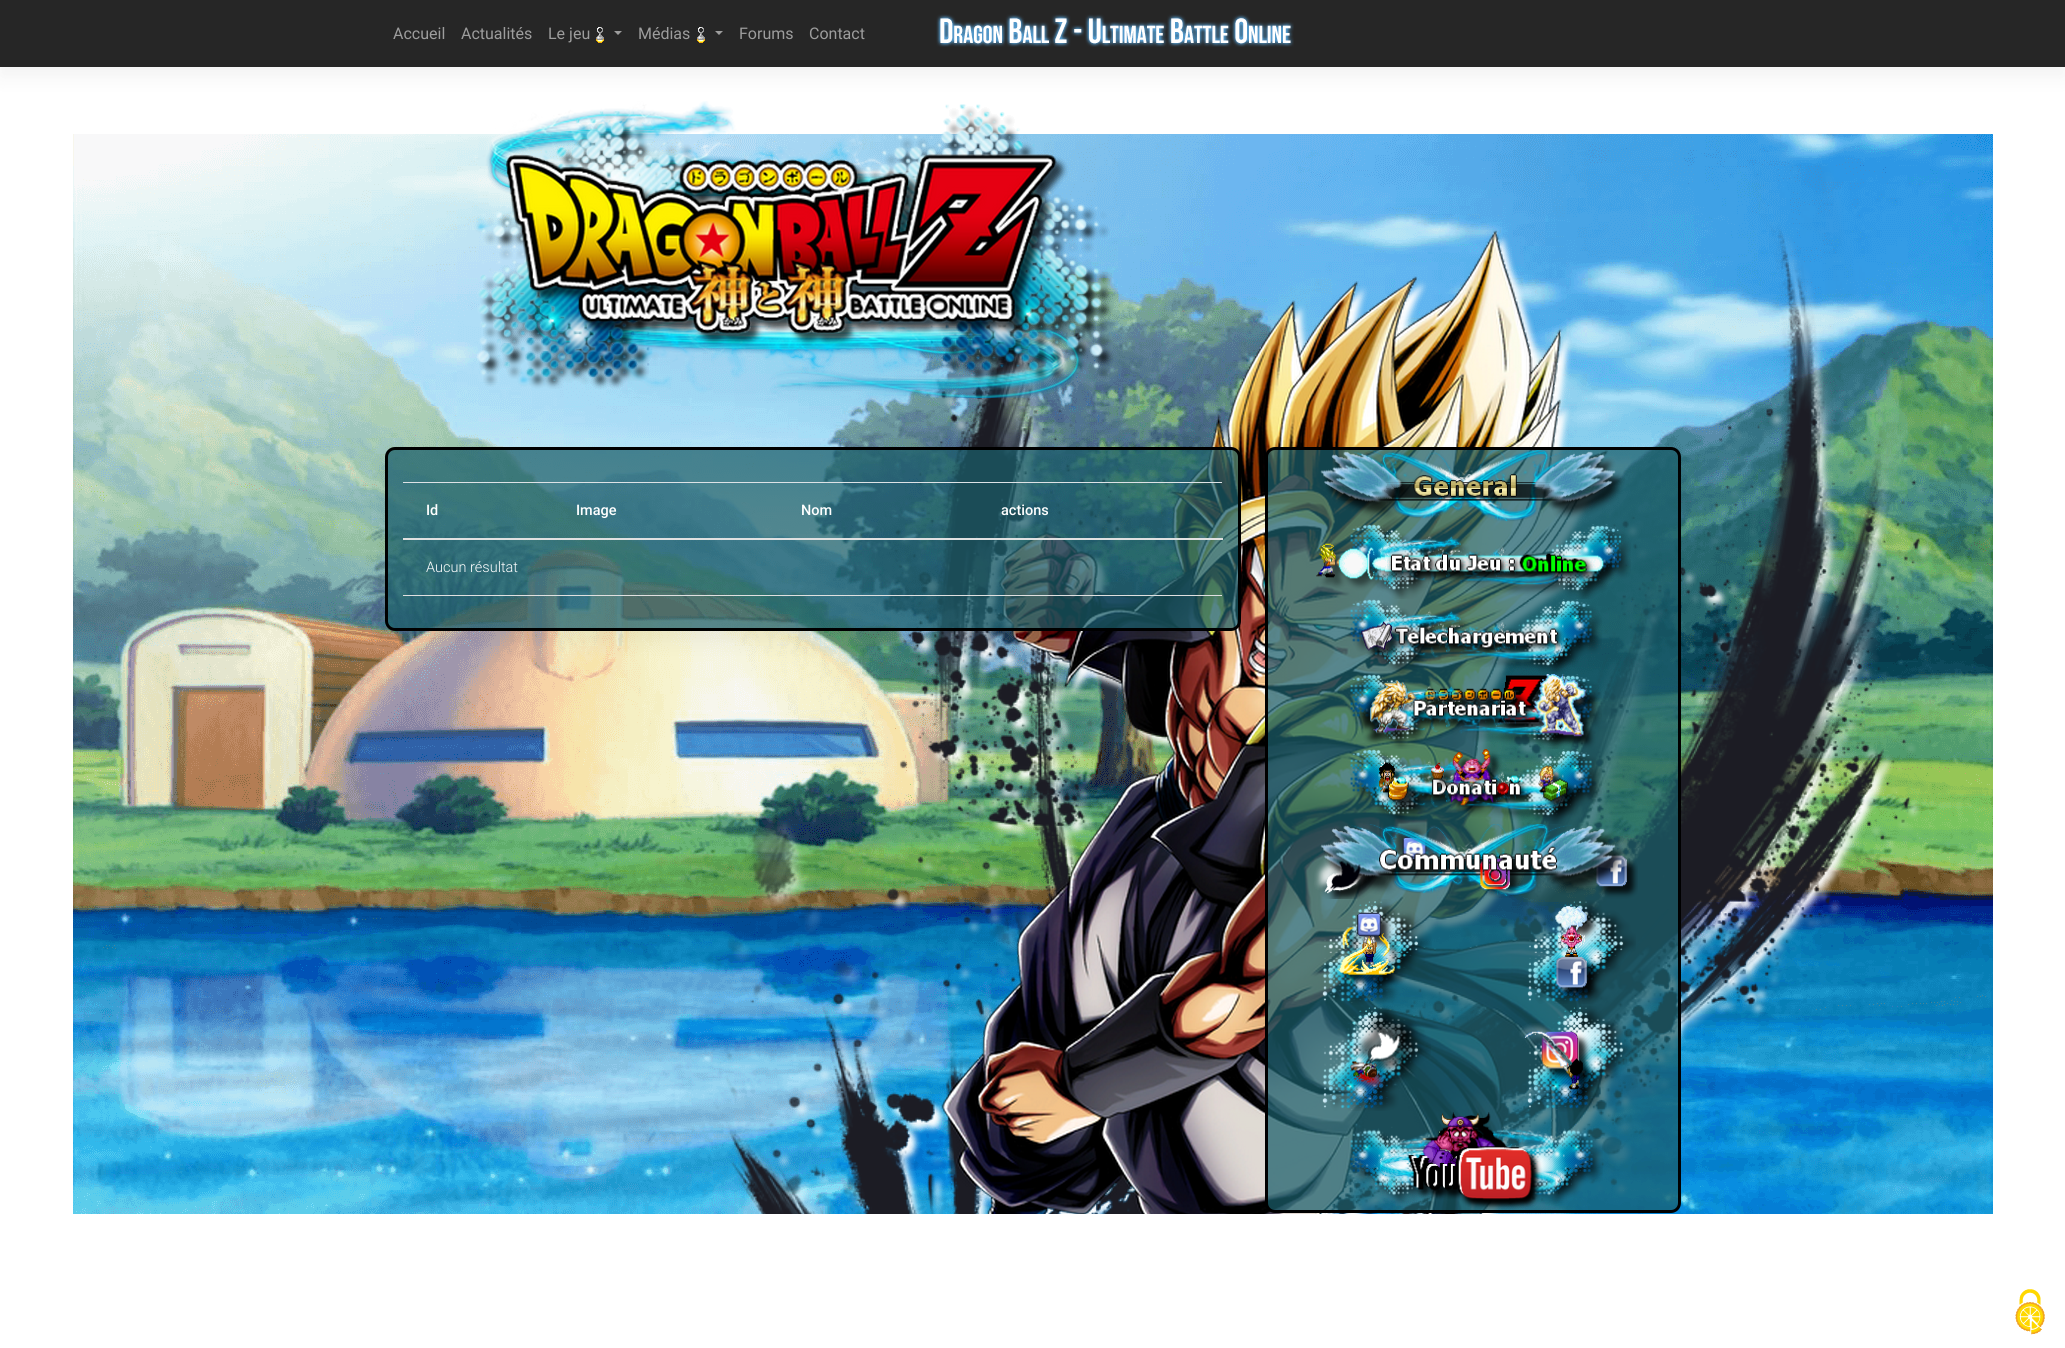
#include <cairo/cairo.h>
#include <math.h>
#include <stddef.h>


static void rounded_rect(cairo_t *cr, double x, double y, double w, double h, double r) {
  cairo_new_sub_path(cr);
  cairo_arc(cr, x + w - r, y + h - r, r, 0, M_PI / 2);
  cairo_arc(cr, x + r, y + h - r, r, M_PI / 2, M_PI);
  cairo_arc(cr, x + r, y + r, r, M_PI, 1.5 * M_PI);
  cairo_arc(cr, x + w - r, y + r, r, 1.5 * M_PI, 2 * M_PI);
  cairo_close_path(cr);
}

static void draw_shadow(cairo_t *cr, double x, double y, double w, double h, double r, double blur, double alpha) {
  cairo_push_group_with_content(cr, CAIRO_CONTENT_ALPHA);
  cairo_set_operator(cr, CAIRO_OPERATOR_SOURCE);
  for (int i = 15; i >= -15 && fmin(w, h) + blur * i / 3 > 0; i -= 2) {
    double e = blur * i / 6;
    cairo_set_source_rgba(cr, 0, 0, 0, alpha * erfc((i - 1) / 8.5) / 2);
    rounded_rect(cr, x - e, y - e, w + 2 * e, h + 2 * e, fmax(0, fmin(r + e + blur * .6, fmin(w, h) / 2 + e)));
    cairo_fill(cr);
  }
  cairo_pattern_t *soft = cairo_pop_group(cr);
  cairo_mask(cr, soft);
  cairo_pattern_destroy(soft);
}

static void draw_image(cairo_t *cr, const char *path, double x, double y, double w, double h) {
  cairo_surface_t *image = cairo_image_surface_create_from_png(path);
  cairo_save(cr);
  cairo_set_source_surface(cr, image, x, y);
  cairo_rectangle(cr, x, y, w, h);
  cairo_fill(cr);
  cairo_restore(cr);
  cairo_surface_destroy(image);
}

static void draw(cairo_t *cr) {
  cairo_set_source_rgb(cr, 1, 1, 1);
  cairo_paint(cr);
  draw_image(cr, "images/1.png", 73, 134, 1920, 1080);
  cairo_set_source_rgb(cr, 0, 0, 0);
  draw_shadow(cr, 0, 10, 2065, 67, 0, 10, 0.05);
  cairo_set_source_rgb(cr, 38 / 255.0, 38 / 255.0, 38 / 255.0);
  cairo_rectangle(cr, 0, 0, 2065, 67);
  cairo_fill(cr);
  draw_image(cr, "images/2.png", 596, 27, 8, 16);
  cairo_set_source_rgb(cr, 157 / 255.0, 157 / 255.0, 157 / 255.0);
  cairo_new_path(cr);
  cairo_move_to(cr, 614, 31);
  cairo_line_to(cr, 622, 31);
  cairo_line_to(cr, 618, 35);
  cairo_close_path(cr);
  cairo_fill(cr);
  draw_image(cr, "images/2.png", 697, 27, 8, 16);
  cairo_new_path(cr);
  cairo_move_to(cr, 715, 31);
  cairo_line_to(cr, 723, 31);
  cairo_line_to(cr, 719, 35);
  cairo_close_path(cr);
  cairo_fill(cr);
  draw_image(cr, "images/3.png", 936, 14, 358, 33);
  draw_image(cr, "images/4.png", 474, 101, 640, 297);
  cairo_save(cr);
  cairo_set_fill_rule(cr, CAIRO_FILL_RULE_EVEN_ODD);
  cairo_new_path(cr);
  cairo_move_to(cr, 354, 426);
  cairo_line_to(cr, 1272, 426);
  cairo_line_to(cr, 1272, 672);
  cairo_line_to(cr, 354, 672);
  cairo_close_path(cr);
  cairo_move_to(cr, 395, 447);
  cairo_line_to(cr, 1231, 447);
  cairo_curve_to(cr, 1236.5, 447, 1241, 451.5, 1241, 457);
  cairo_line_to(cr, 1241, 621);
  cairo_curve_to(cr, 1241, 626.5, 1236.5, 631, 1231, 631);
  cairo_line_to(cr, 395, 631);
  cairo_curve_to(cr, 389.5, 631, 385, 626.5, 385, 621);
  cairo_line_to(cr, 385, 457);
  cairo_curve_to(cr, 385, 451.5, 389.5, 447, 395, 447);
  cairo_close_path(cr);
  cairo_clip(cr);
  cairo_set_source_rgb(cr, 0, 0, 0);
  draw_shadow(cr, 385, 457, 856, 184, 10, 10, 0.05);
  cairo_restore(cr);
  cairo_set_source_rgba(cr, 27 / 255.0, 93 / 255.0, 106 / 255.0, 0.73);
  rounded_rect(cr, 386.5, 448.5, 853, 181, 8.5);
  cairo_fill_preserve(cr);
  cairo_set_source_rgb(cr, 0, 0, 0);
  cairo_set_line_width(cr, 3);
  cairo_stroke(cr);
  cairo_set_source_rgb(cr, 222 / 255.0, 226 / 255.0, 230 / 255.0);
  cairo_rectangle(cr, 403, 482, 819, 1);
  cairo_fill(cr);
  cairo_set_source_rgb(cr, 224 / 255.0, 224 / 255.0, 224 / 255.0);
  cairo_rectangle(cr, 403, 538, 820, 2);
  cairo_fill(cr);
  cairo_rectangle(cr, 403, 595, 819, 1);
  cairo_fill(cr);
  cairo_set_source_rgba(cr, 27 / 255.0, 93 / 255.0, 106 / 255.0, 0.73);
  rounded_rect(cr, 1266.5, 448.5, 413, 763, 8.5);
  cairo_fill_preserve(cr);
  cairo_set_source_rgb(cr, 0, 0, 0);
  cairo_stroke(cr);
  draw_image(cr, "images/5.png", 1320, 450, 305, 73);
  draw_image(cr, "images/6.png", 1316, 524, 315, 75);
  draw_image(cr, "images/7.png", 1350, 599, 252, 75);
  draw_image(cr, "images/8.png", 1350, 674, 252, 75);
  draw_image(cr, "images/9.png", 1350, 749, 252, 75);
  draw_image(cr, "images/10.png", 1314, 824, 324, 75);
  draw_image(cr, "images/11.png", 1322, 899, 110, 106);
  draw_image(cr, "images/12.png", 1527, 900, 109, 104);
  draw_image(cr, "images/13.png", 1322, 1005, 109, 106);
  draw_image(cr, "images/14.png", 1519, 1006, 118, 106);
  draw_image(cr, "images/15.png", 1350, 1112, 253, 98);
  draw_image(cr, "images/16.png", 2015, 1289, 30, 46);
  cairo_select_font_face(cr, "Roboto", CAIRO_FONT_SLANT_NORMAL, CAIRO_FONT_WEIGHT_NORMAL);
  cairo_set_font_size(cr, 16);
  cairo_set_source_rgb(cr, 157 / 255.0, 157 / 255.0, 157 / 255.0);
  cairo_move_to(cr, 393, 39);
  cairo_show_text(cr, "Accueil");
  cairo_move_to(cr, 461, 39);
  cairo_show_text(cr, "Actualités");
  cairo_move_to(cr, 548, 39);
  cairo_show_text(cr, "Le jeu");
  cairo_move_to(cr, 638, 39);
  cairo_show_text(cr, "Médias");
  cairo_move_to(cr, 739, 39);
  cairo_show_text(cr, "Forums");
  cairo_move_to(cr, 809, 39);
  cairo_show_text(cr, "Contact");
  cairo_select_font_face(cr, "Roboto Medium", CAIRO_FONT_SLANT_NORMAL, CAIRO_FONT_WEIGHT_NORMAL);
  cairo_set_font_size(cr, 14.5);
  cairo_set_source_rgb(cr, 1, 1, 1);
  cairo_move_to(cr, 426, 515);
  cairo_show_text(cr, "Id");
  cairo_move_to(cr, 576, 515);
  cairo_show_text(cr, "Image");
  cairo_move_to(cr, 801, 515);
  cairo_show_text(cr, "Nom");
  cairo_move_to(cr, 1001, 515);
  cairo_show_text(cr, "actions");
  cairo_select_font_face(cr, "Roboto Light", CAIRO_FONT_SLANT_NORMAL, CAIRO_FONT_WEIGHT_NORMAL);
  cairo_move_to(cr, 426, 572);
  cairo_show_text(cr, "Aucun résultat");
}

int main(void) {
  cairo_surface_t *surface = cairo_image_surface_create(CAIRO_FORMAT_RGB24, 2065, 1348);
  cairo_t *cr = cairo_create(surface);
  cairo_font_options_t *options = cairo_font_options_create();
  cairo_font_options_set_hint_metrics(options, CAIRO_HINT_METRICS_OFF);
  cairo_font_options_set_hint_style(options, CAIRO_HINT_STYLE_NONE);
  cairo_set_font_options(cr, options);
  cairo_set_miter_limit(cr, 4);
  draw(cr);
  cairo_surface_write_to_png(surface, "out.png");
  cairo_font_options_destroy(options);
  cairo_destroy(cr);
  cairo_surface_destroy(surface);
  return 0;
}
